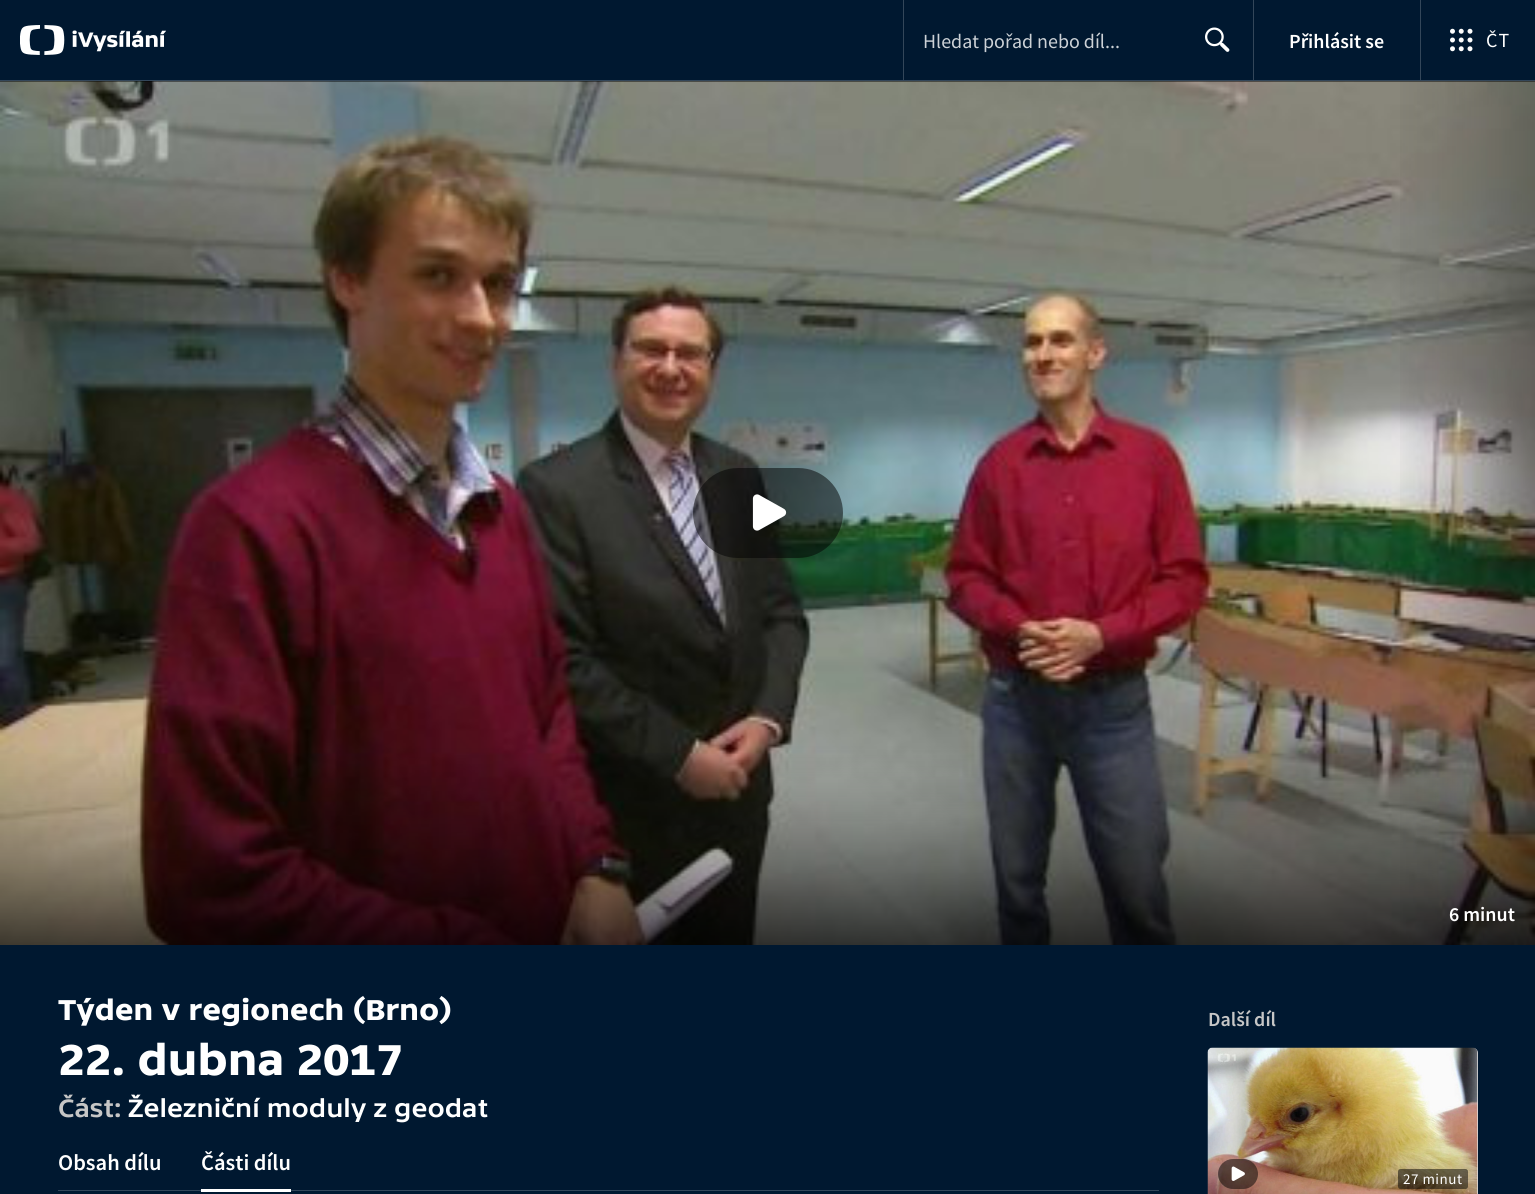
#include <cairo/cairo.h>
#include <math.h>
#include <stddef.h>


static void draw_spaced(cairo_t *cr, double x, double y, const char *s, double letter, double word) {
  cairo_move_to(cr, x, y);
  while (*s) {
    char ch[5] = {0};
    int n = 0;
    do ch[n++] = *s++; while ((*s & 0xC0) == 0x80);
    cairo_show_text(cr, ch);
    cairo_rel_move_to(cr, letter + word * (*ch == ' '), 0);
  }
}

static void rounded_rect(cairo_t *cr, double x, double y, double w, double h, double r) {
  cairo_new_sub_path(cr);
  cairo_arc(cr, x + w - r, y + h - r, r, 0, M_PI / 2);
  cairo_arc(cr, x + r, y + h - r, r, M_PI / 2, M_PI);
  cairo_arc(cr, x + r, y + r, r, M_PI, 1.5 * M_PI);
  cairo_arc(cr, x + w - r, y + r, r, 1.5 * M_PI, 2 * M_PI);
  cairo_close_path(cr);
}

static void draw_image(cairo_t *cr, const char *path, double x, double y, double w, double h) {
  cairo_surface_t *image = cairo_image_surface_create_from_png(path);
  cairo_save(cr);
  cairo_set_source_surface(cr, image, x, y);
  cairo_rectangle(cr, x, y, w, h);
  cairo_fill(cr);
  cairo_restore(cr);
  cairo_surface_destroy(image);
}

static void draw(cairo_t *cr) {
  cairo_pattern_t *gradient;
  cairo_set_source_rgb(cr, 0, 24 / 255.0, 48 / 255.0);
  cairo_paint(cr);
  cairo_set_source_rgb(cr, 51 / 255.0, 70 / 255.0, 89 / 255.0);
  cairo_rectangle(cr, 0, 80, 1535, 1);
  cairo_fill(cr);
  draw_image(cr, "images/1.png", 20, 25, 146, 30);
  cairo_rectangle(cr, 903, 0, 1, 80);
  cairo_fill(cr);
  draw_image(cr, "images/2.png", 1205, 27, 25, 25);
  cairo_rectangle(cr, 1253, 0, 1, 80);
  cairo_fill(cr);
  cairo_rectangle(cr, 1420, 0, 1, 80);
  cairo_fill(cr);
  draw_image(cr, "images/3.png", 1450, 28, 23, 24);
  cairo_set_source_rgb(cr, 0, 0, 0);
  cairo_rectangle(cr, 0, 81, 1535, 1);
  cairo_fill(cr);
  draw_image(cr, "images/4.png", 0, 81, 1535, 864);
  cairo_set_source_rgba(cr, 0, 0, 0, 0.5);
  rounded_rect(cr, 693, 468, 150, 90, 45);
  cairo_fill(cr);
  draw_image(cr, "images/5.png", 752, 494, 35, 37);
  gradient = cairo_pattern_create_linear(1535, 513, 1385, 513);
  cairo_pattern_add_color_stop_rgba(gradient, 0, 0, 0, 0, 0.24);
  cairo_pattern_add_color_stop_rgba(gradient, 0.38, 0, 0, 0, 0.13);
  cairo_pattern_add_color_stop_rgba(gradient, 0.67, 0, 0, 0, 0.06);
  cairo_pattern_add_color_stop_rgba(gradient, 0.86, 0, 0, 0, 0.03);
  cairo_pattern_add_color_stop_rgba(gradient, 1, 0, 0, 0, 0);
  cairo_set_source(cr, gradient);
  cairo_pattern_destroy(gradient);
  cairo_rectangle(cr, 1400, 81, 135, 864);
  cairo_fill(cr);
  cairo_set_source_rgb(cr, 51 / 255.0, 70 / 255.0, 89 / 255.0);
  cairo_rectangle(cr, 58, 1190, 1101, 1);
  cairo_fill(cr);
  cairo_set_source_rgb(cr, 1, 1, 1);
  cairo_rectangle(cr, 201, 1189, 90, 3);
  cairo_fill(cr);
  cairo_set_source_rgb(cr, 224 / 255.0, 224 / 255.0, 224 / 255.0);
  rounded_rect(cr, 1208, 1048, 270, 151, 5);
  cairo_fill(cr);
  draw_image(cr, "images/6.png", 1207, 1047, 271, 147);
  cairo_set_source_rgba(cr, 0, 0, 0, 0.5);
  rounded_rect(cr, 1218, 1159, 40, 30, 15);
  cairo_fill(cr);
  draw_image(cr, "images/7.png", 1231, 1166, 14, 15);
  rounded_rect(cr, 1398, 1169, 70, 20, 2.5);
  cairo_fill(cr);
  cairo_select_font_face(cr, "Source Sans Pro", CAIRO_FONT_SLANT_NORMAL, CAIRO_FONT_WEIGHT_NORMAL);
  cairo_set_font_size(cr, 20);
  cairo_set_source_rgb(cr, 204 / 255.0, 209 / 255.0, 214 / 255.0);
  cairo_move_to(cr, 923, 48);
  cairo_show_text(cr, "Hledat pořad nebo díl...");
  cairo_select_font_face(cr, "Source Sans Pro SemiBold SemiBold", CAIRO_FONT_SLANT_NORMAL, CAIRO_FONT_WEIGHT_NORMAL);
  cairo_set_source_rgb(cr, 1, 1, 1);
  cairo_move_to(cr, 1289, 48);
  cairo_show_text(cr, "Přihlásit se");
  cairo_select_font_face(cr, "Source Sans Pro", CAIRO_FONT_SLANT_NORMAL, CAIRO_FONT_WEIGHT_NORMAL);
  draw_spaced(cr, 1486, 47, "ČT", 1, 0);
  cairo_select_font_face(cr, "Source Sans Pro SemiBold SemiBold", CAIRO_FONT_SLANT_NORMAL, CAIRO_FONT_WEIGHT_NORMAL);
  cairo_move_to(cr, 1449, 921);
  cairo_show_text(cr, "6 minut");
  cairo_select_font_face(cr, "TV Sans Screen", CAIRO_FONT_SLANT_NORMAL, CAIRO_FONT_WEIGHT_BOLD);
  cairo_set_font_size(cr, 30);
  draw_spaced(cr, 58, 1020, "Týden v regionech (Brno)", -0.3, 0);
  cairo_set_font_size(cr, 45);
  draw_spaced(cr, 58, 1075, "22. dubna 2017", -0.5, 0);
  cairo_select_font_face(cr, "TV Sans Screen", CAIRO_FONT_SLANT_NORMAL, CAIRO_FONT_WEIGHT_NORMAL);
  cairo_set_font_size(cr, 26.25);
  cairo_set_source_rgb(cr, 198 / 255.0, 198 / 255.0, 198 / 255.0);
  cairo_move_to(cr, 58, 1117);
  cairo_show_text(cr, "Část:");
  cairo_set_source_rgb(cr, 1, 1, 1);
  cairo_move_to(cr, 128, 1117);
  cairo_show_text(cr, "Železniční moduly z geodat");
  cairo_select_font_face(cr, "Source Sans Pro SemiBold SemiBold", CAIRO_FONT_SLANT_NORMAL, CAIRO_FONT_WEIGHT_NORMAL);
  cairo_set_font_size(cr, 22.5);
  cairo_move_to(cr, 58, 1170);
  cairo_show_text(cr, "Obsah dílu");
  cairo_move_to(cr, 201, 1170);
  cairo_show_text(cr, "Části dílu");
  cairo_set_font_size(cr, 20);
  cairo_set_source_rgb(cr, 198 / 255.0, 198 / 255.0, 198 / 255.0);
  cairo_move_to(cr, 1208, 1026);
  cairo_show_text(cr, "Další díl");
  cairo_select_font_face(cr, "Source Sans Pro", CAIRO_FONT_SLANT_NORMAL, CAIRO_FONT_WEIGHT_NORMAL);
  cairo_set_font_size(cr, 15);
  cairo_set_source_rgb(cr, 1, 1, 1);
  draw_spaced(cr, 1403, 1184, "27 minut", 0.5, 0);
}

int main(void) {
  cairo_surface_t *surface = cairo_image_surface_create(CAIRO_FORMAT_RGB24, 1535, 1194);
  cairo_t *cr = cairo_create(surface);
  cairo_font_options_t *options = cairo_font_options_create();
  cairo_font_options_set_hint_metrics(options, CAIRO_HINT_METRICS_OFF);
  cairo_font_options_set_hint_style(options, CAIRO_HINT_STYLE_NONE);
  cairo_set_font_options(cr, options);
  cairo_set_miter_limit(cr, 4);
  draw(cr);
  cairo_surface_write_to_png(surface, "out.png");
  cairo_font_options_destroy(options);
  cairo_destroy(cr);
  cairo_surface_destroy(surface);
  return 0;
}
